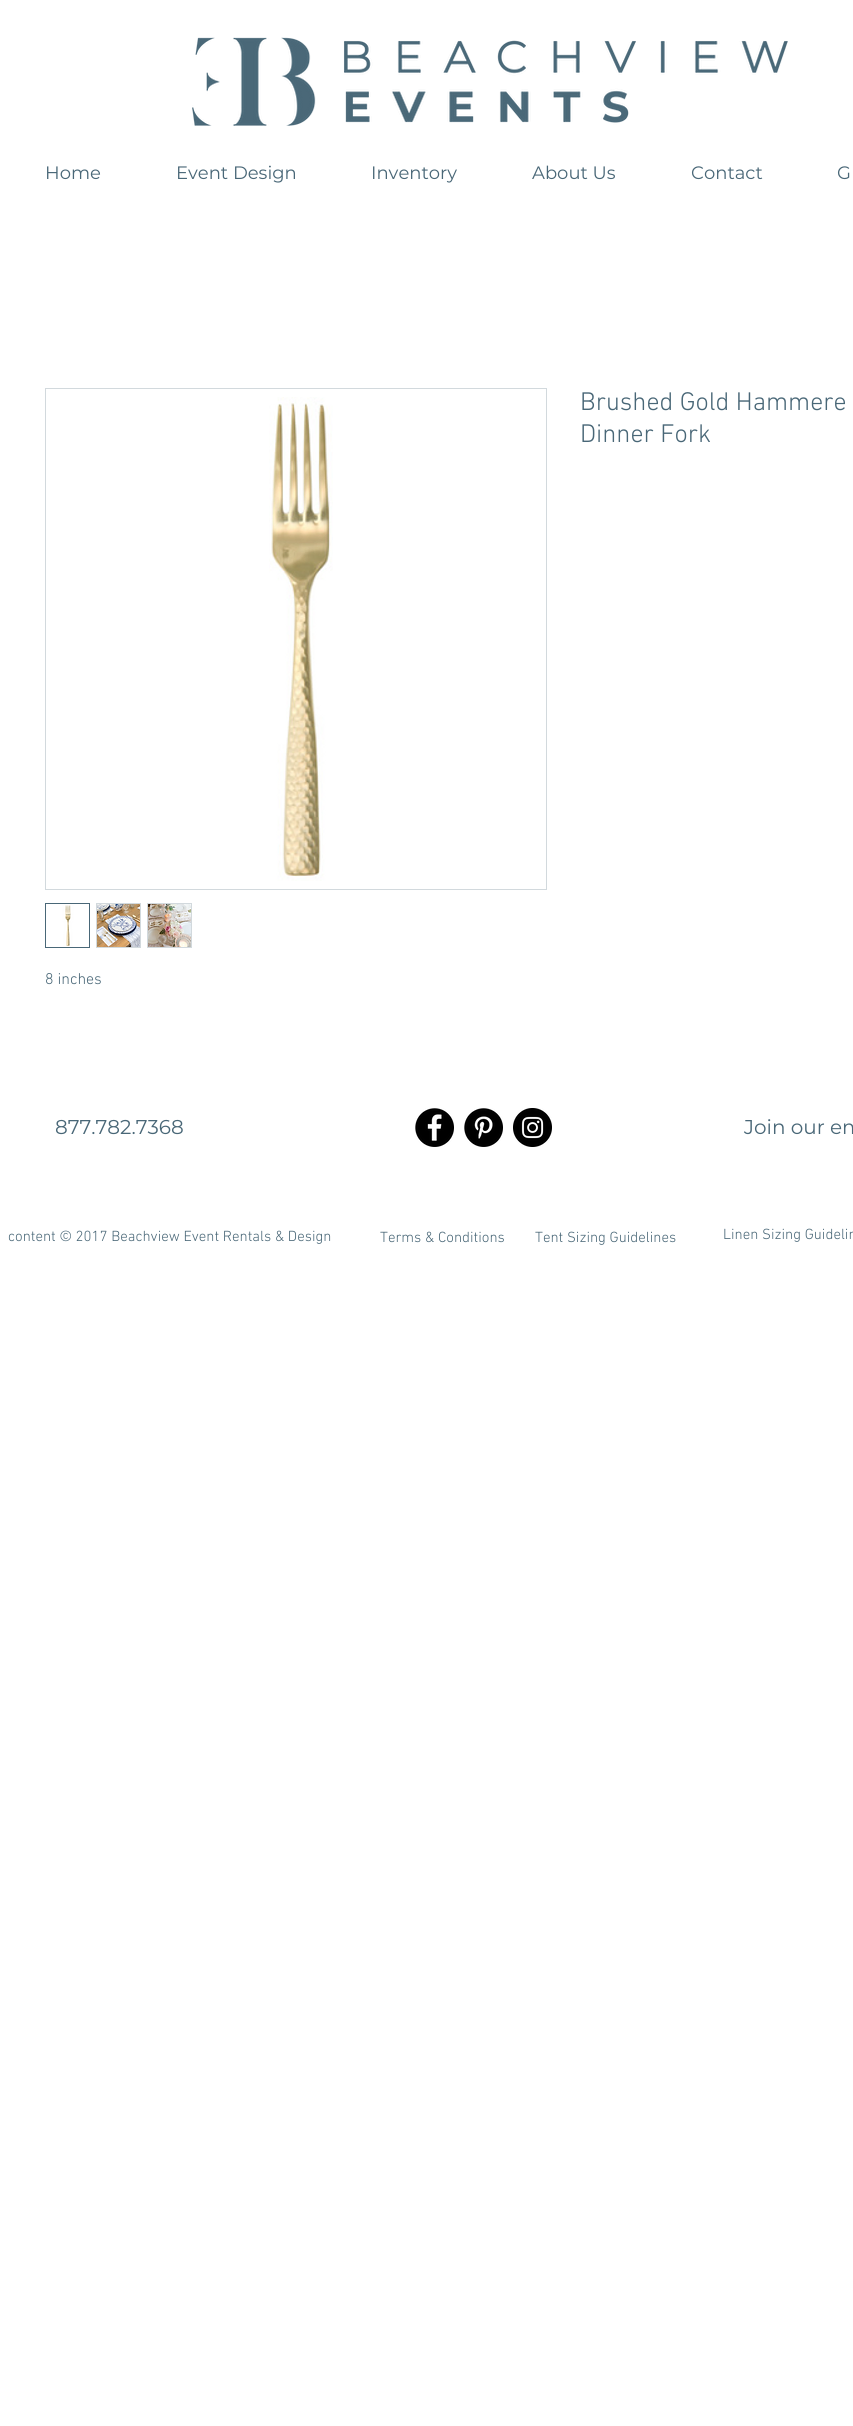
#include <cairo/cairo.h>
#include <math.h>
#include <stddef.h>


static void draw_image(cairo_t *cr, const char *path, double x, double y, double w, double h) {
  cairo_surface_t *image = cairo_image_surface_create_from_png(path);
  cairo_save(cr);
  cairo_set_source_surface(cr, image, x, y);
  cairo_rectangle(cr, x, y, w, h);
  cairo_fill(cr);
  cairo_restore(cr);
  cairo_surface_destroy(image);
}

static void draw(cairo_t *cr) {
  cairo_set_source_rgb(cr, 1, 1, 1);
  cairo_paint(cr);
  draw_image(cr, "images/1.png", 192, 37, 596, 89);
  cairo_rectangle(cr, 45.5, 388.5, 501, 501);
  cairo_set_source_rgb(cr, 210 / 255.0, 217 / 255.0, 221 / 255.0);
  cairo_set_line_width(cr, 1);
  cairo_stroke(cr);
  draw_image(cr, "images/2.png", 269, 397, 64, 484);
  cairo_rectangle(cr, 45.5, 903.5, 44, 44);
  cairo_set_source_rgb(cr, 73 / 255.0, 103 / 255.0, 119 / 255.0);
  cairo_stroke(cr);
  draw_image(cr, "images/3.png", 46, 904, 43, 43);
  cairo_set_source_rgb(cr, 210 / 255.0, 217 / 255.0, 221 / 255.0);
  cairo_rectangle(cr, 96, 903, 45, 45);
  cairo_fill(cr);
  draw_image(cr, "images/4.png", 97, 904, 43, 43);
  cairo_rectangle(cr, 147, 903, 45, 45);
  cairo_fill(cr);
  draw_image(cr, "images/5.png", 148, 904, 43, 43);
  draw_image(cr, "images/6.png", 415, 1108, 39, 39);
  draw_image(cr, "images/7.png", 464, 1108, 39, 39);
  draw_image(cr, "images/8.png", 513, 1108, 39, 39);
  cairo_select_font_face(cr, "Montserrat", CAIRO_FONT_SLANT_NORMAL, CAIRO_FONT_WEIGHT_NORMAL);
  cairo_set_font_size(cr, 18);
  cairo_set_source_rgb(cr, 73 / 255.0, 103 / 255.0, 119 / 255.0);
  cairo_move_to(cr, 45, 179);
  cairo_show_text(cr, "Home");
  cairo_move_to(cr, 176, 179);
  cairo_show_text(cr, "Event Design");
  cairo_move_to(cr, 371, 179);
  cairo_show_text(cr, "Inventory");
  cairo_move_to(cr, 532, 179);
  cairo_show_text(cr, "About Us");
  cairo_move_to(cr, 691, 179);
  cairo_show_text(cr, "Contact");
  cairo_move_to(cr, 837, 179);
  cairo_show_text(cr, "G");
  cairo_select_font_face(cr, "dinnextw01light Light", CAIRO_FONT_SLANT_NORMAL, CAIRO_FONT_WEIGHT_NORMAL);
  cairo_set_font_size(cr, 26);
  cairo_move_to(cr, 580, 410);
  cairo_show_text(cr, "Brushed Gold Hammere");
  cairo_move_to(cr, 580, 442);
  cairo_show_text(cr, "Dinner Fork");
  cairo_set_font_size(cr, 16);
  cairo_move_to(cr, 45, 984);
  cairo_show_text(cr, "8 inches");
  cairo_select_font_face(cr, "Montserrat", CAIRO_FONT_SLANT_NORMAL, CAIRO_FONT_WEIGHT_NORMAL);
  cairo_set_font_size(cr, 20);
  cairo_move_to(cr, 55, 1134);
  cairo_show_text(cr, "877.782.7368");
  cairo_move_to(cr, 744, 1134);
  cairo_show_text(cr, "Join our em");
  cairo_select_font_face(cr, "dinnextw01light Light", CAIRO_FONT_SLANT_NORMAL, CAIRO_FONT_WEIGHT_NORMAL);
  cairo_set_font_size(cr, 15);
  cairo_move_to(cr, 8, 1241);
  cairo_show_text(cr, "content © 2017 Beachview Event Rentals & Design");
  cairo_move_to(cr, 380, 1242);
  cairo_show_text(cr, "Terms & Conditions");
  cairo_move_to(cr, 535, 1242);
  cairo_show_text(cr, "Tent Sizing Guidelines");
  cairo_move_to(cr, 723, 1239);
  cairo_show_text(cr, "Linen Sizing Guidelin");
}

int main(void) {
  cairo_surface_t *surface = cairo_image_surface_create(CAIRO_FORMAT_RGB24, 853, 2426);
  cairo_t *cr = cairo_create(surface);
  cairo_font_options_t *options = cairo_font_options_create();
  cairo_font_options_set_hint_metrics(options, CAIRO_HINT_METRICS_OFF);
  cairo_font_options_set_hint_style(options, CAIRO_HINT_STYLE_NONE);
  cairo_set_font_options(cr, options);
  cairo_set_miter_limit(cr, 4);
  draw(cr);
  cairo_surface_write_to_png(surface, "out.png");
  cairo_font_options_destroy(options);
  cairo_destroy(cr);
  cairo_surface_destroy(surface);
  return 0;
}
